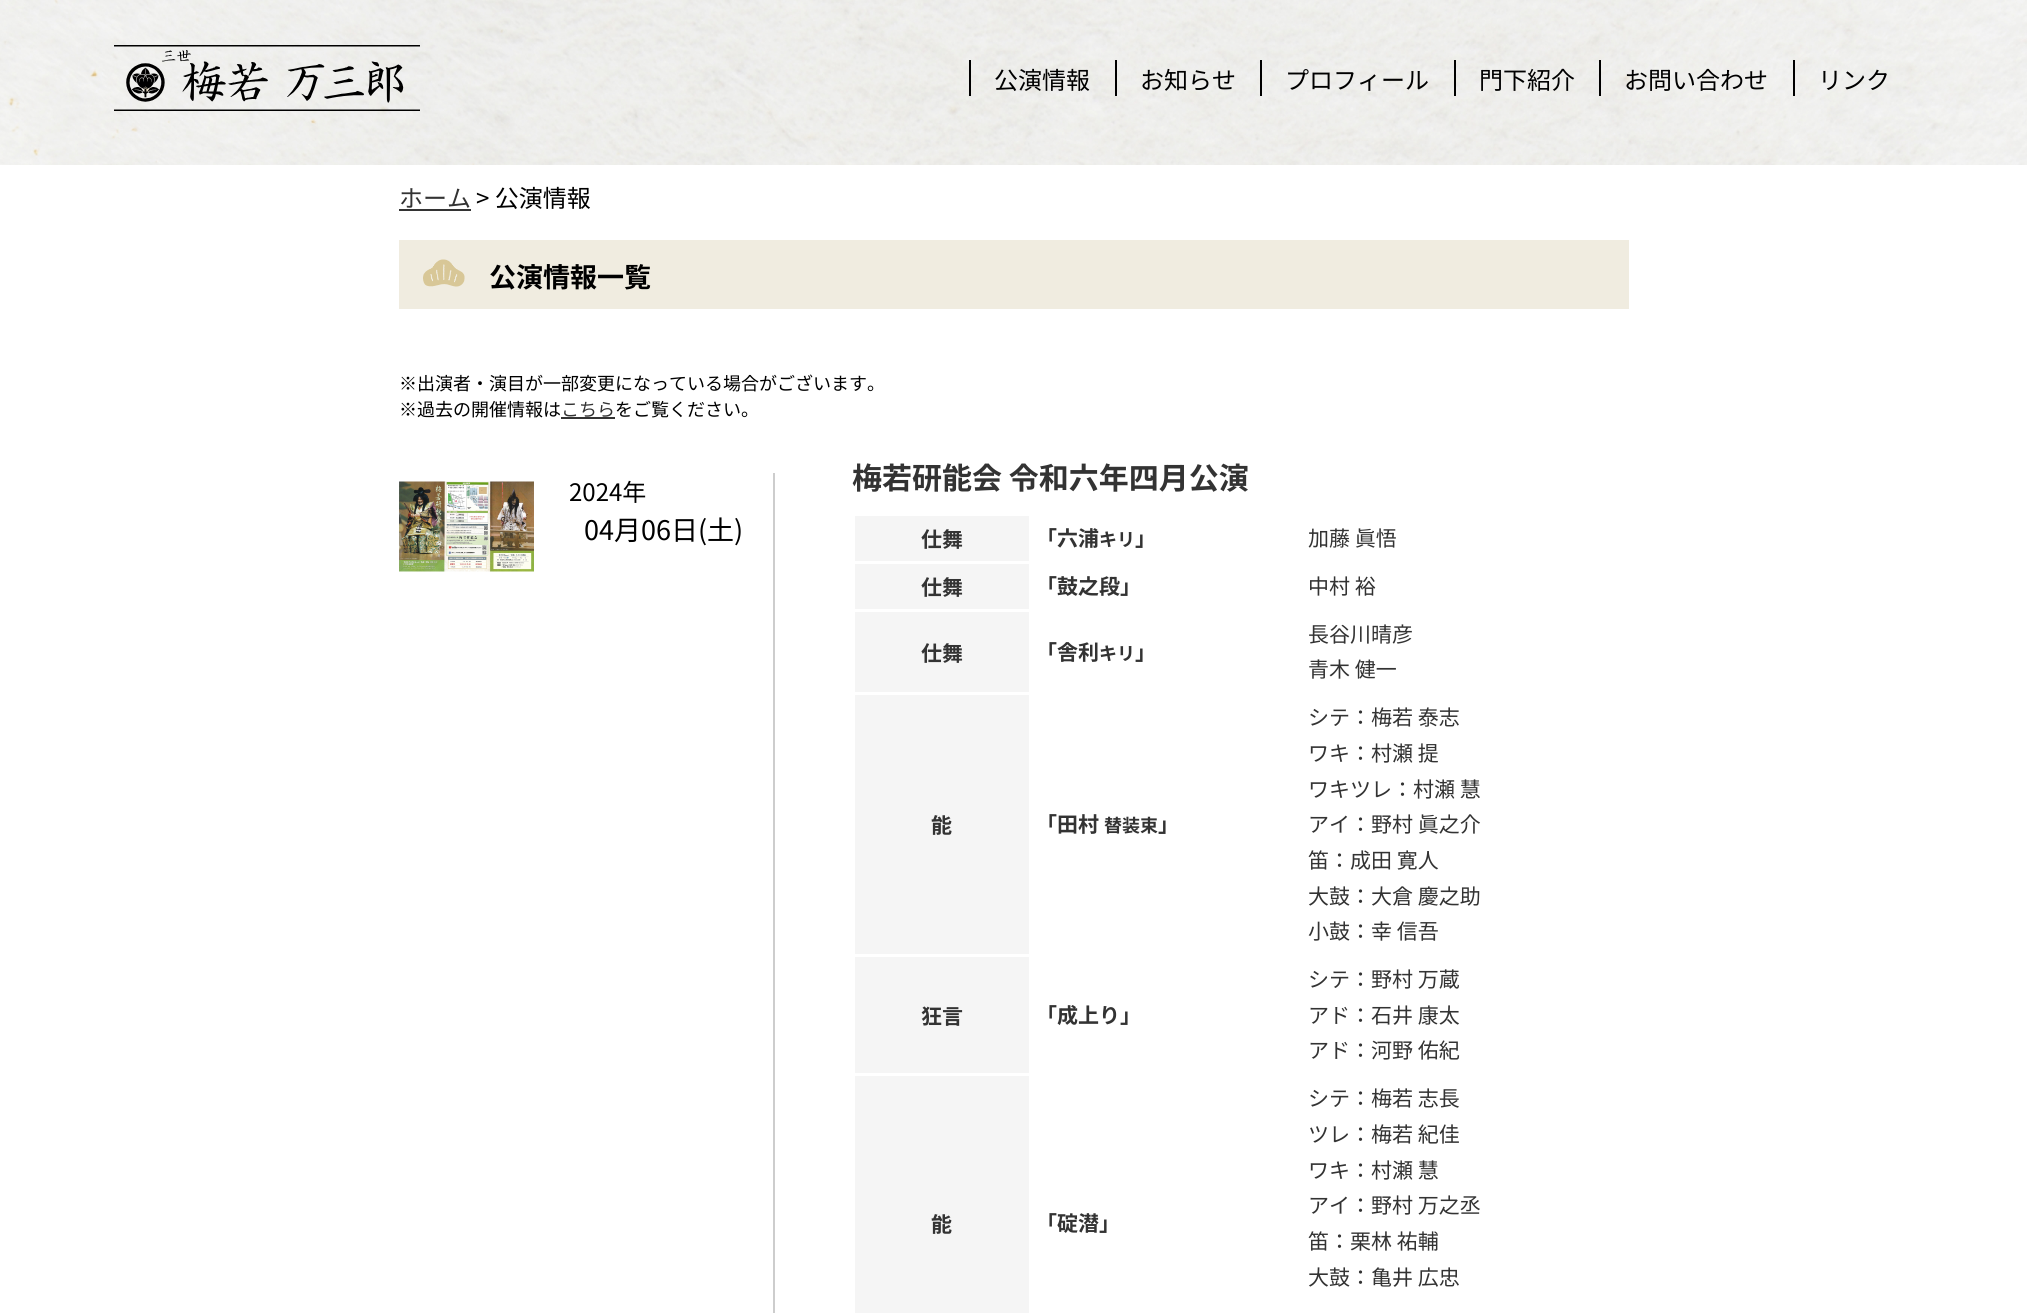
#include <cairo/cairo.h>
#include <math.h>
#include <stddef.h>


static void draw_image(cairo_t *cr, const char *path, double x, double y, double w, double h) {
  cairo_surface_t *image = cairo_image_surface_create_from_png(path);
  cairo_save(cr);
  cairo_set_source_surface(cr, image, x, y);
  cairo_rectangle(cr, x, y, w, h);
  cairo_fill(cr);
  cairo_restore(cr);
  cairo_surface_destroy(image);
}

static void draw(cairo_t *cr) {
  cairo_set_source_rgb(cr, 1, 1, 1);
  cairo_paint(cr);
  draw_image(cr, "images/1.png", 0, 0, 2027, 165);
  draw_image(cr, "images/2.png", 114, 45, 306, 66);
  cairo_set_source_rgb(cr, 0, 0, 0);
  cairo_rectangle(cr, 969, 60, 2, 36);
  cairo_fill(cr);
  cairo_rectangle(cr, 1115, 60, 2, 36);
  cairo_fill(cr);
  cairo_rectangle(cr, 1260, 60, 2, 36);
  cairo_fill(cr);
  cairo_rectangle(cr, 1454, 60, 2, 36);
  cairo_fill(cr);
  cairo_rectangle(cr, 1599, 60, 2, 36);
  cairo_fill(cr);
  cairo_rectangle(cr, 1793, 60, 2, 36);
  cairo_fill(cr);
  cairo_set_source_rgb(cr, 51 / 255.0, 51 / 255.0, 51 / 255.0);
  cairo_rectangle(cr, 399, 209, 72, 2);
  cairo_fill(cr);
  cairo_set_source_rgb(cr, 240 / 255.0, 236 / 255.0, 224 / 255.0);
  cairo_rectangle(cr, 399, 240, 1230, 69);
  cairo_fill(cr);
  draw_image(cr, "images/3.png", 423, 259, 42, 28);
  cairo_set_source_rgb(cr, 51 / 255.0, 51 / 255.0, 51 / 255.0);
  cairo_rectangle(cr, 561, 417, 54, 2);
  cairo_fill(cr);
  draw_image(cr, "images/4.png", 399, 481, 135, 91);
  cairo_set_source_rgb(cr, 205 / 255.0, 205 / 255.0, 205 / 255.0);
  cairo_rectangle(cr, 773, 473, 2, 840);
  cairo_fill(cr);
  cairo_set_source_rgb(cr, 245 / 255.0, 245 / 255.0, 245 / 255.0);
  cairo_rectangle(cr, 855, 516, 174, 45);
  cairo_fill(cr);
  cairo_rectangle(cr, 855, 564, 174, 45);
  cairo_fill(cr);
  cairo_rectangle(cr, 855, 612, 174, 80);
  cairo_fill(cr);
  cairo_rectangle(cr, 855, 695, 174, 259);
  cairo_fill(cr);
  cairo_rectangle(cr, 855, 957, 174, 116);
  cairo_fill(cr);
  cairo_rectangle(cr, 855, 1076, 174, 237);
  cairo_fill(cr);
  cairo_select_font_face(cr, "Noto Sans JP", CAIRO_FONT_SLANT_NORMAL, CAIRO_FONT_WEIGHT_NORMAL);
  cairo_set_font_size(cr, 24);
  cairo_set_source_rgb(cr, 0, 0, 0);
  cairo_move_to(cr, 994, 89);
  cairo_show_text(cr, "公演情報");
  cairo_move_to(cr, 1140, 89);
  cairo_show_text(cr, "お知らせ");
  cairo_move_to(cr, 1285, 89);
  cairo_show_text(cr, "プロフィール");
  cairo_move_to(cr, 1479, 89);
  cairo_show_text(cr, "門下紹介");
  cairo_move_to(cr, 1624, 89);
  cairo_show_text(cr, "お問い合わせ");
  cairo_move_to(cr, 1818, 89);
  cairo_show_text(cr, "リンク");
  cairo_set_source_rgb(cr, 51 / 255.0, 51 / 255.0, 51 / 255.0);
  cairo_move_to(cr, 399, 207);
  cairo_show_text(cr, "ホーム");
  cairo_set_source_rgb(cr, 0, 0, 0);
  cairo_move_to(cr, 476, 207);
  cairo_show_text(cr, "> 公演情報");
  cairo_select_font_face(cr, "Noto Sans JP", CAIRO_FONT_SLANT_NORMAL, CAIRO_FONT_WEIGHT_BOLD);
  cairo_set_font_size(cr, 27);
  cairo_move_to(cr, 489, 287);
  cairo_show_text(cr, "公演情報一覧");
  cairo_select_font_face(cr, "Noto Sans JP", CAIRO_FONT_SLANT_NORMAL, CAIRO_FONT_WEIGHT_NORMAL);
  cairo_set_font_size(cr, 18);
  cairo_move_to(cr, 399, 390);
  cairo_show_text(cr, "※出演者・演目が一部変更になっている場合がございます。");
  cairo_move_to(cr, 399, 416);
  cairo_show_text(cr, "※過去の開催情報は");
  cairo_set_source_rgb(cr, 51 / 255.0, 51 / 255.0, 51 / 255.0);
  cairo_move_to(cr, 561, 416);
  cairo_show_text(cr, "こちら");
  cairo_set_source_rgb(cr, 0, 0, 0);
  cairo_move_to(cr, 615, 416);
  cairo_show_text(cr, "をご覧ください。");
  cairo_set_font_size(cr, 24);
  cairo_move_to(cr, 569, 501);
  cairo_show_text(cr, "2024年");
  cairo_set_font_size(cr, 27);
  cairo_move_to(cr, 584, 540);
  cairo_show_text(cr, "04月06日(土)");
  cairo_select_font_face(cr, "Noto Sans JP", CAIRO_FONT_SLANT_NORMAL, CAIRO_FONT_WEIGHT_BOLD);
  cairo_set_font_size(cr, 30);
  cairo_set_source_rgb(cr, 51 / 255.0, 51 / 255.0, 51 / 255.0);
  cairo_move_to(cr, 852, 489);
  cairo_show_text(cr, "梅若研能会 令和六年四月公演");
  cairo_set_font_size(cr, 21);
  cairo_move_to(cr, 921, 547);
  cairo_show_text(cr, "仕舞");
  cairo_move_to(cr, 1036, 546);
  cairo_show_text(cr, "「六浦");
  cairo_set_font_size(cr, 18);
  cairo_move_to(cr, 1099, 546);
  cairo_show_text(cr, "キリ");
  cairo_set_font_size(cr, 21);
  cairo_move_to(cr, 1135, 546);
  cairo_show_text(cr, "」");
  cairo_select_font_face(cr, "Noto Sans JP", CAIRO_FONT_SLANT_NORMAL, CAIRO_FONT_WEIGHT_NORMAL);
  cairo_move_to(cr, 1308, 546);
  cairo_show_text(cr, "加藤 眞悟");
  cairo_select_font_face(cr, "Noto Sans JP", CAIRO_FONT_SLANT_NORMAL, CAIRO_FONT_WEIGHT_BOLD);
  cairo_move_to(cr, 921, 595);
  cairo_show_text(cr, "仕舞");
  cairo_move_to(cr, 1036, 594);
  cairo_show_text(cr, "「鼓之段」");
  cairo_select_font_face(cr, "Noto Sans JP", CAIRO_FONT_SLANT_NORMAL, CAIRO_FONT_WEIGHT_NORMAL);
  cairo_move_to(cr, 1308, 594);
  cairo_show_text(cr, "中村 裕");
  cairo_select_font_face(cr, "Noto Sans JP", CAIRO_FONT_SLANT_NORMAL, CAIRO_FONT_WEIGHT_BOLD);
  cairo_move_to(cr, 921, 661);
  cairo_show_text(cr, "仕舞");
  cairo_move_to(cr, 1036, 660);
  cairo_show_text(cr, "「舎利");
  cairo_set_font_size(cr, 18);
  cairo_move_to(cr, 1099, 660);
  cairo_show_text(cr, "キリ");
  cairo_set_font_size(cr, 21);
  cairo_move_to(cr, 1135, 660);
  cairo_show_text(cr, "」");
  cairo_select_font_face(cr, "Noto Sans JP", CAIRO_FONT_SLANT_NORMAL, CAIRO_FONT_WEIGHT_NORMAL);
  cairo_move_to(cr, 1308, 642);
  cairo_show_text(cr, "長谷川晴彦");
  cairo_move_to(cr, 1308, 677);
  cairo_show_text(cr, "青木 健一");
  cairo_select_font_face(cr, "Noto Sans JP", CAIRO_FONT_SLANT_NORMAL, CAIRO_FONT_WEIGHT_BOLD);
  cairo_move_to(cr, 931, 833);
  cairo_show_text(cr, "能");
  cairo_move_to(cr, 1036, 832);
  cairo_show_text(cr, "「田村");
  cairo_set_font_size(cr, 18);
  cairo_move_to(cr, 1104, 832);
  cairo_show_text(cr, "替装束");
  cairo_set_font_size(cr, 21);
  cairo_move_to(cr, 1158, 832);
  cairo_show_text(cr, "」");
  cairo_select_font_face(cr, "Noto Sans JP", CAIRO_FONT_SLANT_NORMAL, CAIRO_FONT_WEIGHT_NORMAL);
  cairo_move_to(cr, 1308, 725);
  cairo_show_text(cr, "シテ：梅若 泰志");
  cairo_move_to(cr, 1308, 761);
  cairo_show_text(cr, "ワキ：村瀬 提");
  cairo_move_to(cr, 1308, 797);
  cairo_show_text(cr, "ワキツレ：村瀬 慧");
  cairo_move_to(cr, 1308, 832);
  cairo_show_text(cr, "アイ：野村 眞之介");
  cairo_move_to(cr, 1308, 868);
  cairo_show_text(cr, "笛：成田 寛人");
  cairo_move_to(cr, 1308, 904);
  cairo_show_text(cr, "大鼓：大倉 慶之助");
  cairo_move_to(cr, 1308, 939);
  cairo_show_text(cr, "小鼓：幸 信吾");
  cairo_select_font_face(cr, "Noto Sans JP", CAIRO_FONT_SLANT_NORMAL, CAIRO_FONT_WEIGHT_BOLD);
  cairo_move_to(cr, 921, 1024);
  cairo_show_text(cr, "狂言");
  cairo_move_to(cr, 1036, 1023);
  cairo_show_text(cr, "「成上り」");
  cairo_select_font_face(cr, "Noto Sans JP", CAIRO_FONT_SLANT_NORMAL, CAIRO_FONT_WEIGHT_NORMAL);
  cairo_move_to(cr, 1308, 987);
  cairo_show_text(cr, "シテ：野村 万蔵");
  cairo_move_to(cr, 1308, 1023);
  cairo_show_text(cr, "アド：石井 康太");
  cairo_move_to(cr, 1308, 1058);
  cairo_show_text(cr, "アド：河野 佑紀");
  cairo_select_font_face(cr, "Noto Sans JP", CAIRO_FONT_SLANT_NORMAL, CAIRO_FONT_WEIGHT_BOLD);
  cairo_move_to(cr, 931, 1232);
  cairo_show_text(cr, "能");
  cairo_move_to(cr, 1036, 1231);
  cairo_show_text(cr, "「碇潜」");
  cairo_select_font_face(cr, "Noto Sans JP", CAIRO_FONT_SLANT_NORMAL, CAIRO_FONT_WEIGHT_NORMAL);
  cairo_move_to(cr, 1308, 1106);
  cairo_show_text(cr, "シテ：梅若 志長");
  cairo_move_to(cr, 1308, 1142);
  cairo_show_text(cr, "ツレ：梅若 紀佳");
  cairo_move_to(cr, 1308, 1178);
  cairo_show_text(cr, "ワキ：村瀬 慧");
  cairo_move_to(cr, 1308, 1213);
  cairo_show_text(cr, "アイ：野村 万之丞");
  cairo_move_to(cr, 1308, 1249);
  cairo_show_text(cr, "笛：栗林 祐輔");
  cairo_move_to(cr, 1308, 1285);
  cairo_show_text(cr, "大鼓：亀井 広忠");
}

int main(void) {
  cairo_surface_t *surface = cairo_image_surface_create(CAIRO_FORMAT_RGB24, 2027, 1313);
  cairo_t *cr = cairo_create(surface);
  cairo_font_options_t *options = cairo_font_options_create();
  cairo_font_options_set_hint_metrics(options, CAIRO_HINT_METRICS_OFF);
  cairo_font_options_set_hint_style(options, CAIRO_HINT_STYLE_NONE);
  cairo_set_font_options(cr, options);
  cairo_set_miter_limit(cr, 4);
  draw(cr);
  cairo_surface_write_to_png(surface, "out.png");
  cairo_font_options_destroy(options);
  cairo_destroy(cr);
  cairo_surface_destroy(surface);
  return 0;
}
